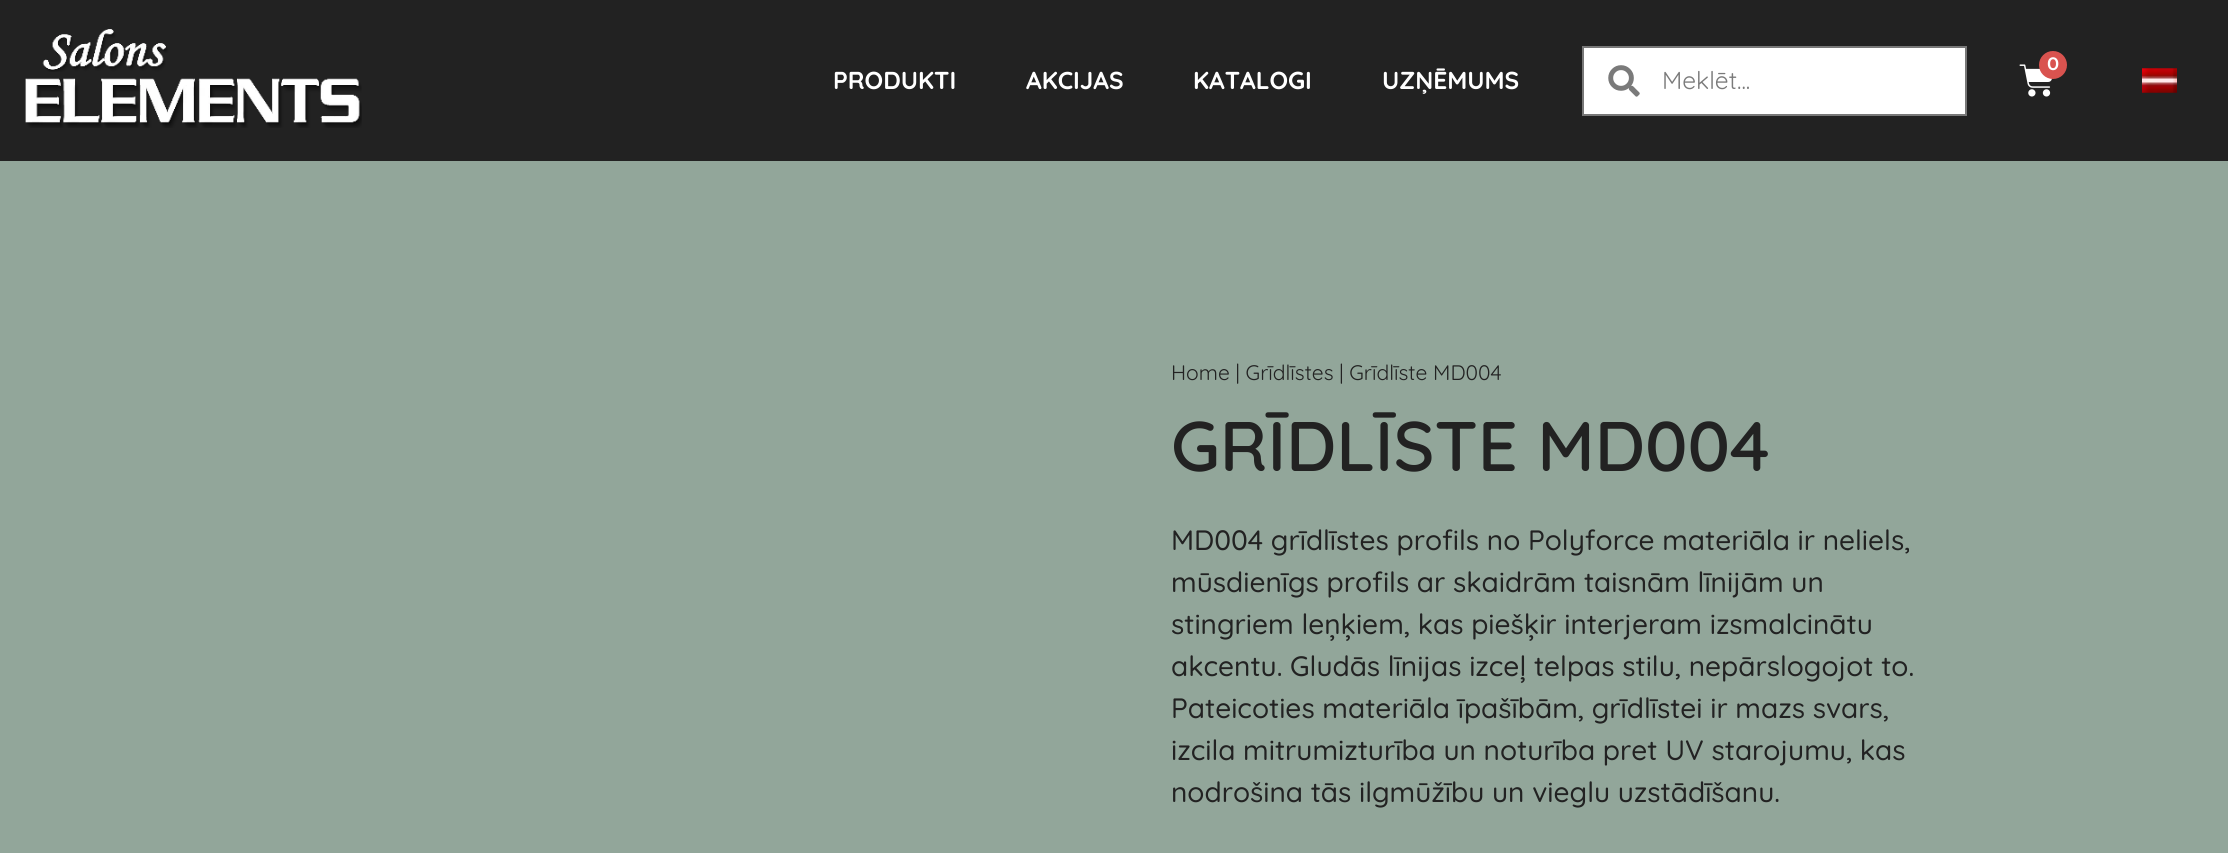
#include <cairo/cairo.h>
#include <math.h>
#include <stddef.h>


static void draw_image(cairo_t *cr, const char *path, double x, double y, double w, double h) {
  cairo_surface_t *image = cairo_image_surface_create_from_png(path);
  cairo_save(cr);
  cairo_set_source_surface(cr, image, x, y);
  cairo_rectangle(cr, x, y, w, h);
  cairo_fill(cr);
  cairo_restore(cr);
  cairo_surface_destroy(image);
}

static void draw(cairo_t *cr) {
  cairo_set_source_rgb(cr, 34 / 255.0, 34 / 255.0, 34 / 255.0);
  cairo_paint(cr);
  draw_image(cr, "images/1.png", 25, 29, 337, 99);
  draw_image(cr, "images/2.png", 2019, 64, 33, 33);
  cairo_set_source_rgb(cr, 217 / 255.0, 83 / 255.0, 79 / 255.0);
  cairo_arc(cr, 2053, 65, 14, 0, 2 * M_PI);
  cairo_fill(cr);
  cairo_set_source_rgb(cr, 1, 1, 1);
  cairo_rectangle(cr, 1583, 47, 383, 68);
  cairo_fill_preserve(cr);
  cairo_set_source_rgb(cr, 120 / 255.0, 120 / 255.0, 120 / 255.0);
  cairo_stroke(cr);
  draw_image(cr, "images/3.png", 1608, 65, 32, 32);
  draw_image(cr, "images/4.png", 2142, 68, 35, 25);
  cairo_set_source_rgb(cr, 146 / 255.0, 166 / 255.0, 154 / 255.0);
  cairo_rectangle(cr, 0, 161, 2228, 692);
  cairo_fill(cr);
  cairo_select_font_face(cr, "Montserrat SemiBold", CAIRO_FONT_SLANT_NORMAL, CAIRO_FONT_WEIGHT_NORMAL);
  cairo_set_font_size(cr, 18);
  cairo_set_source_rgb(cr, 1, 1, 1);
  cairo_move_to(cr, 2047, 70);
  cairo_show_text(cr, "0");
  cairo_select_font_face(cr, "Quicksand", CAIRO_FONT_SLANT_NORMAL, CAIRO_FONT_WEIGHT_BOLD);
  cairo_set_font_size(cr, 24.5);
  cairo_move_to(cr, 833, 89);
  cairo_show_text(cr, "PRODUKTI");
  cairo_move_to(cr, 1026, 89);
  cairo_show_text(cr, "AKCIJAS");
  cairo_move_to(cr, 1193, 89);
  cairo_show_text(cr, "KATALOGI");
  cairo_move_to(cr, 1382, 89);
  cairo_show_text(cr, "UZŅĒMUMS");
  cairo_select_font_face(cr, "Quicksand", CAIRO_FONT_SLANT_NORMAL, CAIRO_FONT_WEIGHT_NORMAL);
  cairo_set_source_rgb(cr, 122 / 255.0, 122 / 255.0, 122 / 255.0);
  cairo_move_to(cr, 1662, 89);
  cairo_show_text(cr, "Meklēt...");
  cairo_set_font_size(cr, 21);
  cairo_set_source_rgb(cr, 34 / 255.0, 34 / 255.0, 34 / 255.0);
  cairo_move_to(cr, 1171, 380);
  cairo_show_text(cr, "Home | Grīdlīstes | Grīdlīste MD004");
  cairo_select_font_face(cr, "Quicksand SemiBold", CAIRO_FONT_SLANT_NORMAL, CAIRO_FONT_WEIGHT_NORMAL);
  cairo_set_font_size(cr, 70);
  cairo_move_to(cr, 1171, 471);
  cairo_show_text(cr, "GRĪDLĪSTE MD004");
  cairo_select_font_face(cr, "Quicksand Medium", CAIRO_FONT_SLANT_NORMAL, CAIRO_FONT_WEIGHT_NORMAL);
  cairo_set_font_size(cr, 28);
  cairo_move_to(cr, 1171, 550);
  cairo_show_text(cr, "MD004 grīdlīstes profils no Polyforce materiāla ir neliels,");
  cairo_move_to(cr, 1171, 592);
  cairo_show_text(cr, "mūsdienīgs profils ar skaidrām taisnām līnijām un");
  cairo_move_to(cr, 1171, 634);
  cairo_show_text(cr, "stingriem leņķiem, kas piešķir interjeram izsmalcinātu");
  cairo_move_to(cr, 1171, 676);
  cairo_show_text(cr, "akcentu. Gludās līnijas izceļ telpas stilu, nepārslogojot to.");
  cairo_move_to(cr, 1171, 718);
  cairo_show_text(cr, "Pateicoties materiāla īpašībām, grīdlīstei ir mazs svars,");
  cairo_move_to(cr, 1171, 760);
  cairo_show_text(cr, "izcila mitrumizturība un noturība pret UV starojumu, kas");
  cairo_move_to(cr, 1171, 802);
  cairo_show_text(cr, "nodrošina tās ilgmūžību un vieglu uzstādīšanu.");
}

int main(void) {
  cairo_surface_t *surface = cairo_image_surface_create(CAIRO_FORMAT_RGB24, 2228, 853);
  cairo_t *cr = cairo_create(surface);
  cairo_font_options_t *options = cairo_font_options_create();
  cairo_font_options_set_hint_metrics(options, CAIRO_HINT_METRICS_OFF);
  cairo_font_options_set_hint_style(options, CAIRO_HINT_STYLE_NONE);
  cairo_set_font_options(cr, options);
  cairo_set_miter_limit(cr, 4);
  draw(cr);
  cairo_surface_write_to_png(surface, "out.png");
  cairo_font_options_destroy(options);
  cairo_destroy(cr);
  cairo_surface_destroy(surface);
  return 0;
}
